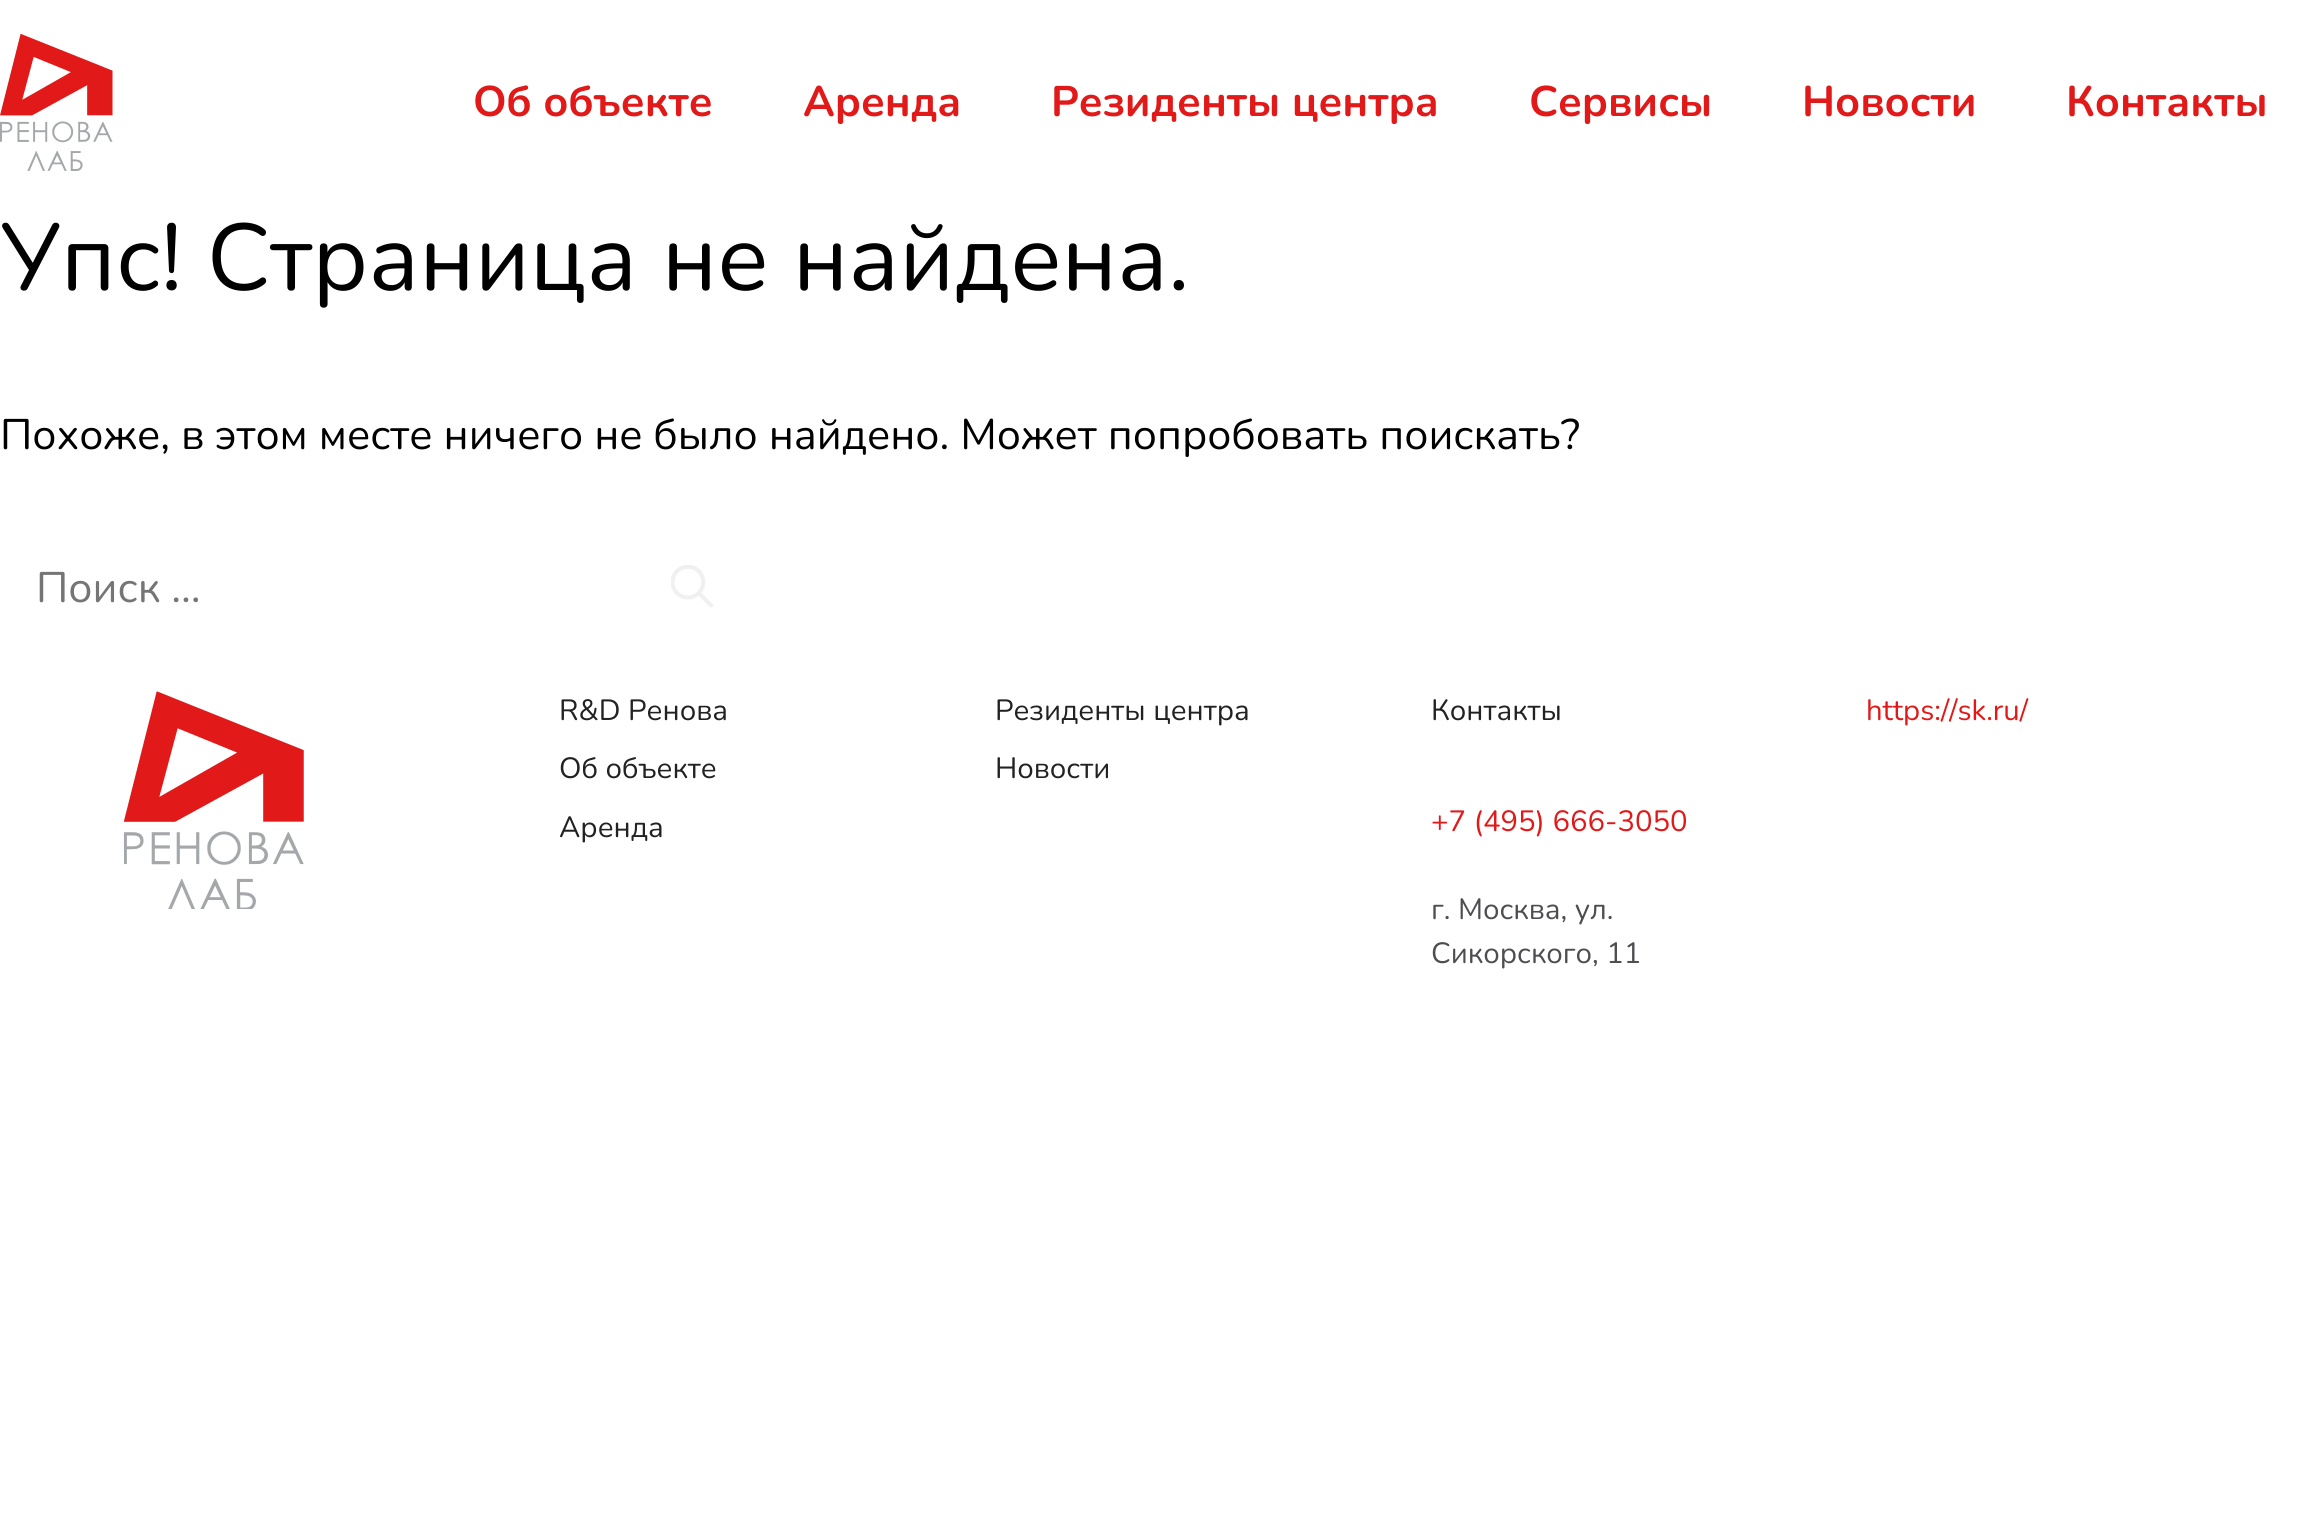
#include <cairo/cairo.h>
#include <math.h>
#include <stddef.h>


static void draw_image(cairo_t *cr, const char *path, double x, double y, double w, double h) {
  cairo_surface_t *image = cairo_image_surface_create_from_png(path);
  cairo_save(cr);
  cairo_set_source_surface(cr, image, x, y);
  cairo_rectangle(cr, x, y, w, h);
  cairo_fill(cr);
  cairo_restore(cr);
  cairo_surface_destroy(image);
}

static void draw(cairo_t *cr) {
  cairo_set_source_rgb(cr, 1, 1, 1);
  cairo_paint(cr);
  draw_image(cr, "images/1.png", 0, 34, 113, 137);
  draw_image(cr, "images/2.png", 671, 565, 42, 43);
  draw_image(cr, "images/3.png", 124, 691, 180, 218);
  cairo_select_font_face(cr, "Nunito", CAIRO_FONT_SLANT_NORMAL, CAIRO_FONT_WEIGHT_BOLD);
  cairo_set_font_size(cr, 42.75);
  cairo_set_source_rgb(cr, 225 / 255.0, 25 / 255.0, 25 / 255.0);
  cairo_move_to(cr, 473, 116);
  cairo_show_text(cr, "Об объекте");
  cairo_move_to(cr, 803, 116);
  cairo_show_text(cr, "Аренда");
  cairo_move_to(cr, 1051, 116);
  cairo_show_text(cr, "Резиденты центра");
  cairo_move_to(cr, 1529, 116);
  cairo_show_text(cr, "Сервисы");
  cairo_move_to(cr, 1802, 116);
  cairo_show_text(cr, "Новости");
  cairo_move_to(cr, 2066, 116);
  cairo_show_text(cr, "Контакты");
  cairo_select_font_face(cr, "Nunito", CAIRO_FONT_SLANT_NORMAL, CAIRO_FONT_WEIGHT_NORMAL);
  cairo_set_font_size(cr, 94.5);
  cairo_set_source_rgb(cr, 0, 0, 0);
  cairo_move_to(cr, 0, 290);
  cairo_show_text(cr, "Упс! Страница не найдена.");
  cairo_set_font_size(cr, 42.75);
  cairo_move_to(cr, 0, 449);
  cairo_show_text(cr, "Похоже, в этом месте ничего не было найдено. Может попробовать поискать?");
  cairo_set_source_rgb(cr, 117 / 255.0, 117 / 255.0, 117 / 255.0);
  cairo_move_to(cr, 36, 602);
  cairo_show_text(cr, "Поиск …");
  cairo_set_font_size(cr, 29.25);
  cairo_set_source_rgb(cr, 34 / 255.0, 34 / 255.0, 34 / 255.0);
  cairo_move_to(cr, 559, 720);
  cairo_show_text(cr, "R&D Ренова");
  cairo_move_to(cr, 559, 778);
  cairo_show_text(cr, "Об объекте");
  cairo_move_to(cr, 559, 837);
  cairo_show_text(cr, "Аренда");
  cairo_move_to(cr, 995, 720);
  cairo_show_text(cr, "Резиденты центра");
  cairo_move_to(cr, 995, 778);
  cairo_show_text(cr, "Новости");
  cairo_move_to(cr, 1431, 720);
  cairo_show_text(cr, "Контакты");
  cairo_set_source_rgb(cr, 225 / 255.0, 25 / 255.0, 25 / 255.0);
  cairo_move_to(cr, 1431, 831);
  cairo_show_text(cr, "+7 (495) 666-3050");
  cairo_set_source_rgb(cr, 78 / 255.0, 78 / 255.0, 82 / 255.0);
  cairo_move_to(cr, 1431, 919);
  cairo_show_text(cr, "г. Москва, ул.");
  cairo_move_to(cr, 1431, 963);
  cairo_show_text(cr, "Сикорского, 11");
  cairo_set_source_rgb(cr, 225 / 255.0, 25 / 255.0, 25 / 255.0);
  cairo_move_to(cr, 1866, 720);
  cairo_show_text(cr, "https://sk.ru/");
}

int main(void) {
  cairo_surface_t *surface = cairo_image_surface_create(CAIRO_FORMAT_RGB24, 2313, 1533);
  cairo_t *cr = cairo_create(surface);
  cairo_font_options_t *options = cairo_font_options_create();
  cairo_font_options_set_hint_metrics(options, CAIRO_HINT_METRICS_OFF);
  cairo_font_options_set_hint_style(options, CAIRO_HINT_STYLE_NONE);
  cairo_set_font_options(cr, options);
  cairo_set_miter_limit(cr, 4);
  draw(cr);
  cairo_surface_write_to_png(surface, "out.png");
  cairo_font_options_destroy(options);
  cairo_destroy(cr);
  cairo_surface_destroy(surface);
  return 0;
}
